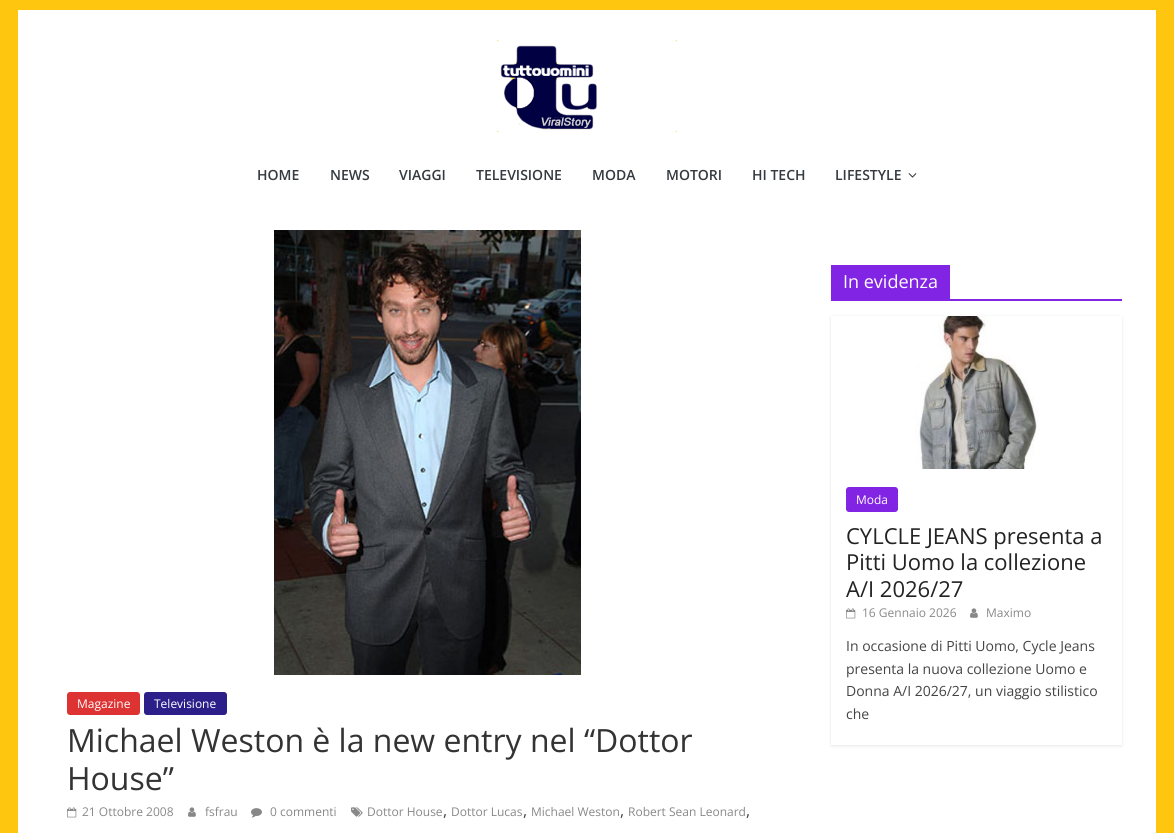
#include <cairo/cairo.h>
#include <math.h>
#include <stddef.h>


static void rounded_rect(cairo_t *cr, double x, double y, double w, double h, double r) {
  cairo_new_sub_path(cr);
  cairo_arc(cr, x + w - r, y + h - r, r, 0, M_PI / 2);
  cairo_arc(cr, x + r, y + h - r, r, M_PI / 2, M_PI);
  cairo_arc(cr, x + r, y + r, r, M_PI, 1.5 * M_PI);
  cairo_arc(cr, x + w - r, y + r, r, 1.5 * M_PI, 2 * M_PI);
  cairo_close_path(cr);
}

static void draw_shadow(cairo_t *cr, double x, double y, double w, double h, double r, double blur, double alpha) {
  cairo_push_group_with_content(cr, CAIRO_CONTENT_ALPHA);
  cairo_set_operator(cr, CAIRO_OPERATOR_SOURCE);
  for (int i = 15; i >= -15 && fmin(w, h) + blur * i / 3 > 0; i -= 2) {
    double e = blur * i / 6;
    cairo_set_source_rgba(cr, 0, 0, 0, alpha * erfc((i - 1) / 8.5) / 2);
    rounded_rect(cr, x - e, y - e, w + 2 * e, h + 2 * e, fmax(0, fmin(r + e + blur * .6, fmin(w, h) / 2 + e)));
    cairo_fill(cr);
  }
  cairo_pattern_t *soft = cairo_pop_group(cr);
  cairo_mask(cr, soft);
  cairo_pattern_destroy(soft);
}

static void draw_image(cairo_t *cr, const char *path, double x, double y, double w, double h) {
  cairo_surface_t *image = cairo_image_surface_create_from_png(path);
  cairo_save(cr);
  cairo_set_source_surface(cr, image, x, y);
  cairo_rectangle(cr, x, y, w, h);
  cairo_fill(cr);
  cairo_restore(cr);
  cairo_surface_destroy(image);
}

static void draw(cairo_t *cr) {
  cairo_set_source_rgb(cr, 1, 198 / 255.0, 16 / 255.0);
  cairo_paint(cr);
  cairo_set_source_rgb(cr, 1, 1, 1);
  cairo_rectangle(cr, 18, 10, 1138, 823);
  cairo_fill(cr);
  draw_image(cr, "images/1.png", 497, 40, 180, 92);
  draw_image(cr, "images/2.png", 908, 173, 9, 5);
  cairo_set_source_rgb(cr, 130 / 255.0, 36 / 255.0, 227 / 255.0);
  cairo_rectangle(cr, 831, 299, 291, 2);
  cairo_fill(cr);
  cairo_rectangle(cr, 831, 265, 119, 34);
  cairo_fill(cr);
  cairo_save(cr);
  cairo_set_fill_rule(cr, CAIRO_FILL_RULE_EVEN_ODD);
  cairo_new_path(cr);
  cairo_move_to(cr, 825, 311);
  cairo_line_to(cr, 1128, 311);
  cairo_line_to(cr, 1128, 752);
  cairo_line_to(cr, 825, 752);
  cairo_close_path(cr);
  cairo_move_to(cr, 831, 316);
  cairo_line_to(cr, 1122, 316);
  cairo_line_to(cr, 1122, 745);
  cairo_line_to(cr, 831, 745);
  cairo_close_path(cr);
  cairo_clip(cr);
  cairo_set_source_rgb(cr, 0, 0, 0);
  draw_shadow(cr, 831, 317, 291, 429, 0, 1.5, 0.1);
  cairo_restore(cr);
  draw_image(cr, "images/3.png", 915, 316, 124, 153);
  rounded_rect(cr, 846, 487, 52, 25, 3);
  cairo_fill(cr);
  draw_image(cr, "images/4.png", 846, 608, 10, 11);
  draw_image(cr, "images/5.png", 970, 608, 8, 10);
  draw_image(cr, "images/6.png", 274, 230, 307, 445);
  cairo_set_source_rgb(cr, 221 / 255.0, 51 / 255.0, 51 / 255.0);
  rounded_rect(cr, 67, 692, 73, 23, 3);
  cairo_fill(cr);
  cairo_set_source_rgb(cr, 44 / 255.0, 31 / 255.0, 137 / 255.0);
  rounded_rect(cr, 144, 692, 83, 23, 3);
  cairo_fill(cr);
  draw_image(cr, "images/4.png", 67, 807, 10, 11);
  draw_image(cr, "images/5.png", 188, 807, 8, 10);
  draw_image(cr, "images/7.png", 251, 808, 11, 10);
  draw_image(cr, "images/8.png", 351, 807, 12, 10);
  cairo_select_font_face(cr, "Open Sans SemiBold", CAIRO_FONT_SLANT_NORMAL, CAIRO_FONT_WEIGHT_NORMAL);
  cairo_set_font_size(cr, 14);
  cairo_set_source_rgb(cr, 52 / 255.0, 58 / 255.0, 64 / 255.0);
  cairo_move_to(cr, 257, 180);
  cairo_show_text(cr, "HOME");
  cairo_move_to(cr, 330, 180);
  cairo_show_text(cr, "NEWS");
  cairo_move_to(cr, 399, 180);
  cairo_show_text(cr, "VIAGGI");
  cairo_move_to(cr, 476, 180);
  cairo_show_text(cr, "TELEVISIONE");
  cairo_move_to(cr, 592, 180);
  cairo_show_text(cr, "MODA");
  cairo_move_to(cr, 666, 180);
  cairo_show_text(cr, "MOTORI");
  cairo_move_to(cr, 752, 180);
  cairo_show_text(cr, "HI TECH");
  cairo_move_to(cr, 835, 180);
  cairo_show_text(cr, "LIFESTYLE");
  cairo_select_font_face(cr, "Open Sans", CAIRO_FONT_SLANT_NORMAL, CAIRO_FONT_WEIGHT_NORMAL);
  cairo_set_font_size(cr, 18);
  cairo_set_source_rgb(cr, 1, 1, 1);
  cairo_move_to(cr, 843, 288);
  cairo_show_text(cr, "In evidenza");
  cairo_set_font_size(cr, 12);
  cairo_move_to(cr, 856, 504);
  cairo_show_text(cr, "Moda");
  cairo_set_font_size(cr, 22);
  cairo_set_source_rgb(cr, 35 / 255.0, 35 / 255.0, 35 / 255.0);
  cairo_move_to(cr, 846, 544);
  cairo_show_text(cr, "CYLCLE JEANS presenta a");
  cairo_move_to(cr, 846, 570);
  cairo_show_text(cr, "Pitti Uomo la collezione");
  cairo_move_to(cr, 846, 597);
  cairo_show_text(cr, "A/I 2026/27");
  cairo_set_font_size(cr, 12);
  cairo_set_source_rgb(cr, 136 / 255.0, 136 / 255.0, 136 / 255.0);
  cairo_move_to(cr, 862, 617);
  cairo_show_text(cr, "16 Gennaio 2026");
  cairo_move_to(cr, 986, 617);
  cairo_show_text(cr, "Maximo");
  cairo_set_font_size(cr, 14);
  cairo_set_source_rgb(cr, 68 / 255.0, 68 / 255.0, 68 / 255.0);
  cairo_move_to(cr, 846, 651);
  cairo_show_text(cr, "In occasione di Pitti Uomo, Cycle Jeans");
  cairo_move_to(cr, 846, 674);
  cairo_show_text(cr, "presenta la nuova collezione Uomo e");
  cairo_move_to(cr, 846, 696);
  cairo_show_text(cr, "Donna A/I 2026/27, un viaggio stilistico");
  cairo_move_to(cr, 846, 719);
  cairo_show_text(cr, "che");
  cairo_set_font_size(cr, 12);
  cairo_set_source_rgb(cr, 1, 1, 1);
  cairo_move_to(cr, 77, 708);
  cairo_show_text(cr, "Magazine");
  cairo_move_to(cr, 154, 708);
  cairo_show_text(cr, "Televisione");
  cairo_set_font_size(cr, 32);
  cairo_set_source_rgb(cr, 51 / 255.0, 51 / 255.0, 51 / 255.0);
  cairo_move_to(cr, 67, 752);
  cairo_show_text(cr, "Michael Weston è la new entry nel “Dottor");
  cairo_move_to(cr, 67, 790);
  cairo_show_text(cr, "House”");
  cairo_set_font_size(cr, 12);
  cairo_set_source_rgb(cr, 136 / 255.0, 136 / 255.0, 136 / 255.0);
  cairo_move_to(cr, 82, 816);
  cairo_show_text(cr, "21 Ottobre 2008");
  cairo_move_to(cr, 205, 816);
  cairo_show_text(cr, "fsfrau");
  cairo_move_to(cr, 270, 816);
  cairo_show_text(cr, "0 commenti");
  cairo_move_to(cr, 367, 816);
  cairo_show_text(cr, "Dottor House");
  cairo_set_font_size(cr, 16);
  cairo_set_source_rgb(cr, 68 / 255.0, 68 / 255.0, 68 / 255.0);
  cairo_move_to(cr, 443, 816);
  cairo_show_text(cr, ",");
  cairo_set_font_size(cr, 12);
  cairo_set_source_rgb(cr, 136 / 255.0, 136 / 255.0, 136 / 255.0);
  cairo_move_to(cr, 451, 816);
  cairo_show_text(cr, "Dottor Lucas");
  cairo_set_font_size(cr, 16);
  cairo_set_source_rgb(cr, 68 / 255.0, 68 / 255.0, 68 / 255.0);
  cairo_move_to(cr, 523, 816);
  cairo_show_text(cr, ",");
  cairo_set_font_size(cr, 12);
  cairo_set_source_rgb(cr, 136 / 255.0, 136 / 255.0, 136 / 255.0);
  cairo_move_to(cr, 531, 816);
  cairo_show_text(cr, "Michael Weston");
  cairo_set_font_size(cr, 16);
  cairo_set_source_rgb(cr, 68 / 255.0, 68 / 255.0, 68 / 255.0);
  cairo_move_to(cr, 620, 816);
  cairo_show_text(cr, ",");
  cairo_set_font_size(cr, 12);
  cairo_set_source_rgb(cr, 136 / 255.0, 136 / 255.0, 136 / 255.0);
  cairo_move_to(cr, 628, 816);
  cairo_show_text(cr, "Robert Sean Leonard");
  cairo_set_font_size(cr, 16);
  cairo_set_source_rgb(cr, 68 / 255.0, 68 / 255.0, 68 / 255.0);
  cairo_move_to(cr, 746, 816);
  cairo_show_text(cr, ",");
}

int main(void) {
  cairo_surface_t *surface = cairo_image_surface_create(CAIRO_FORMAT_RGB24, 1174, 833);
  cairo_t *cr = cairo_create(surface);
  cairo_font_options_t *options = cairo_font_options_create();
  cairo_font_options_set_hint_metrics(options, CAIRO_HINT_METRICS_OFF);
  cairo_font_options_set_hint_style(options, CAIRO_HINT_STYLE_NONE);
  cairo_set_font_options(cr, options);
  cairo_set_miter_limit(cr, 4);
  draw(cr);
  cairo_surface_write_to_png(surface, "out.png");
  cairo_font_options_destroy(options);
  cairo_destroy(cr);
  cairo_surface_destroy(surface);
  return 0;
}
